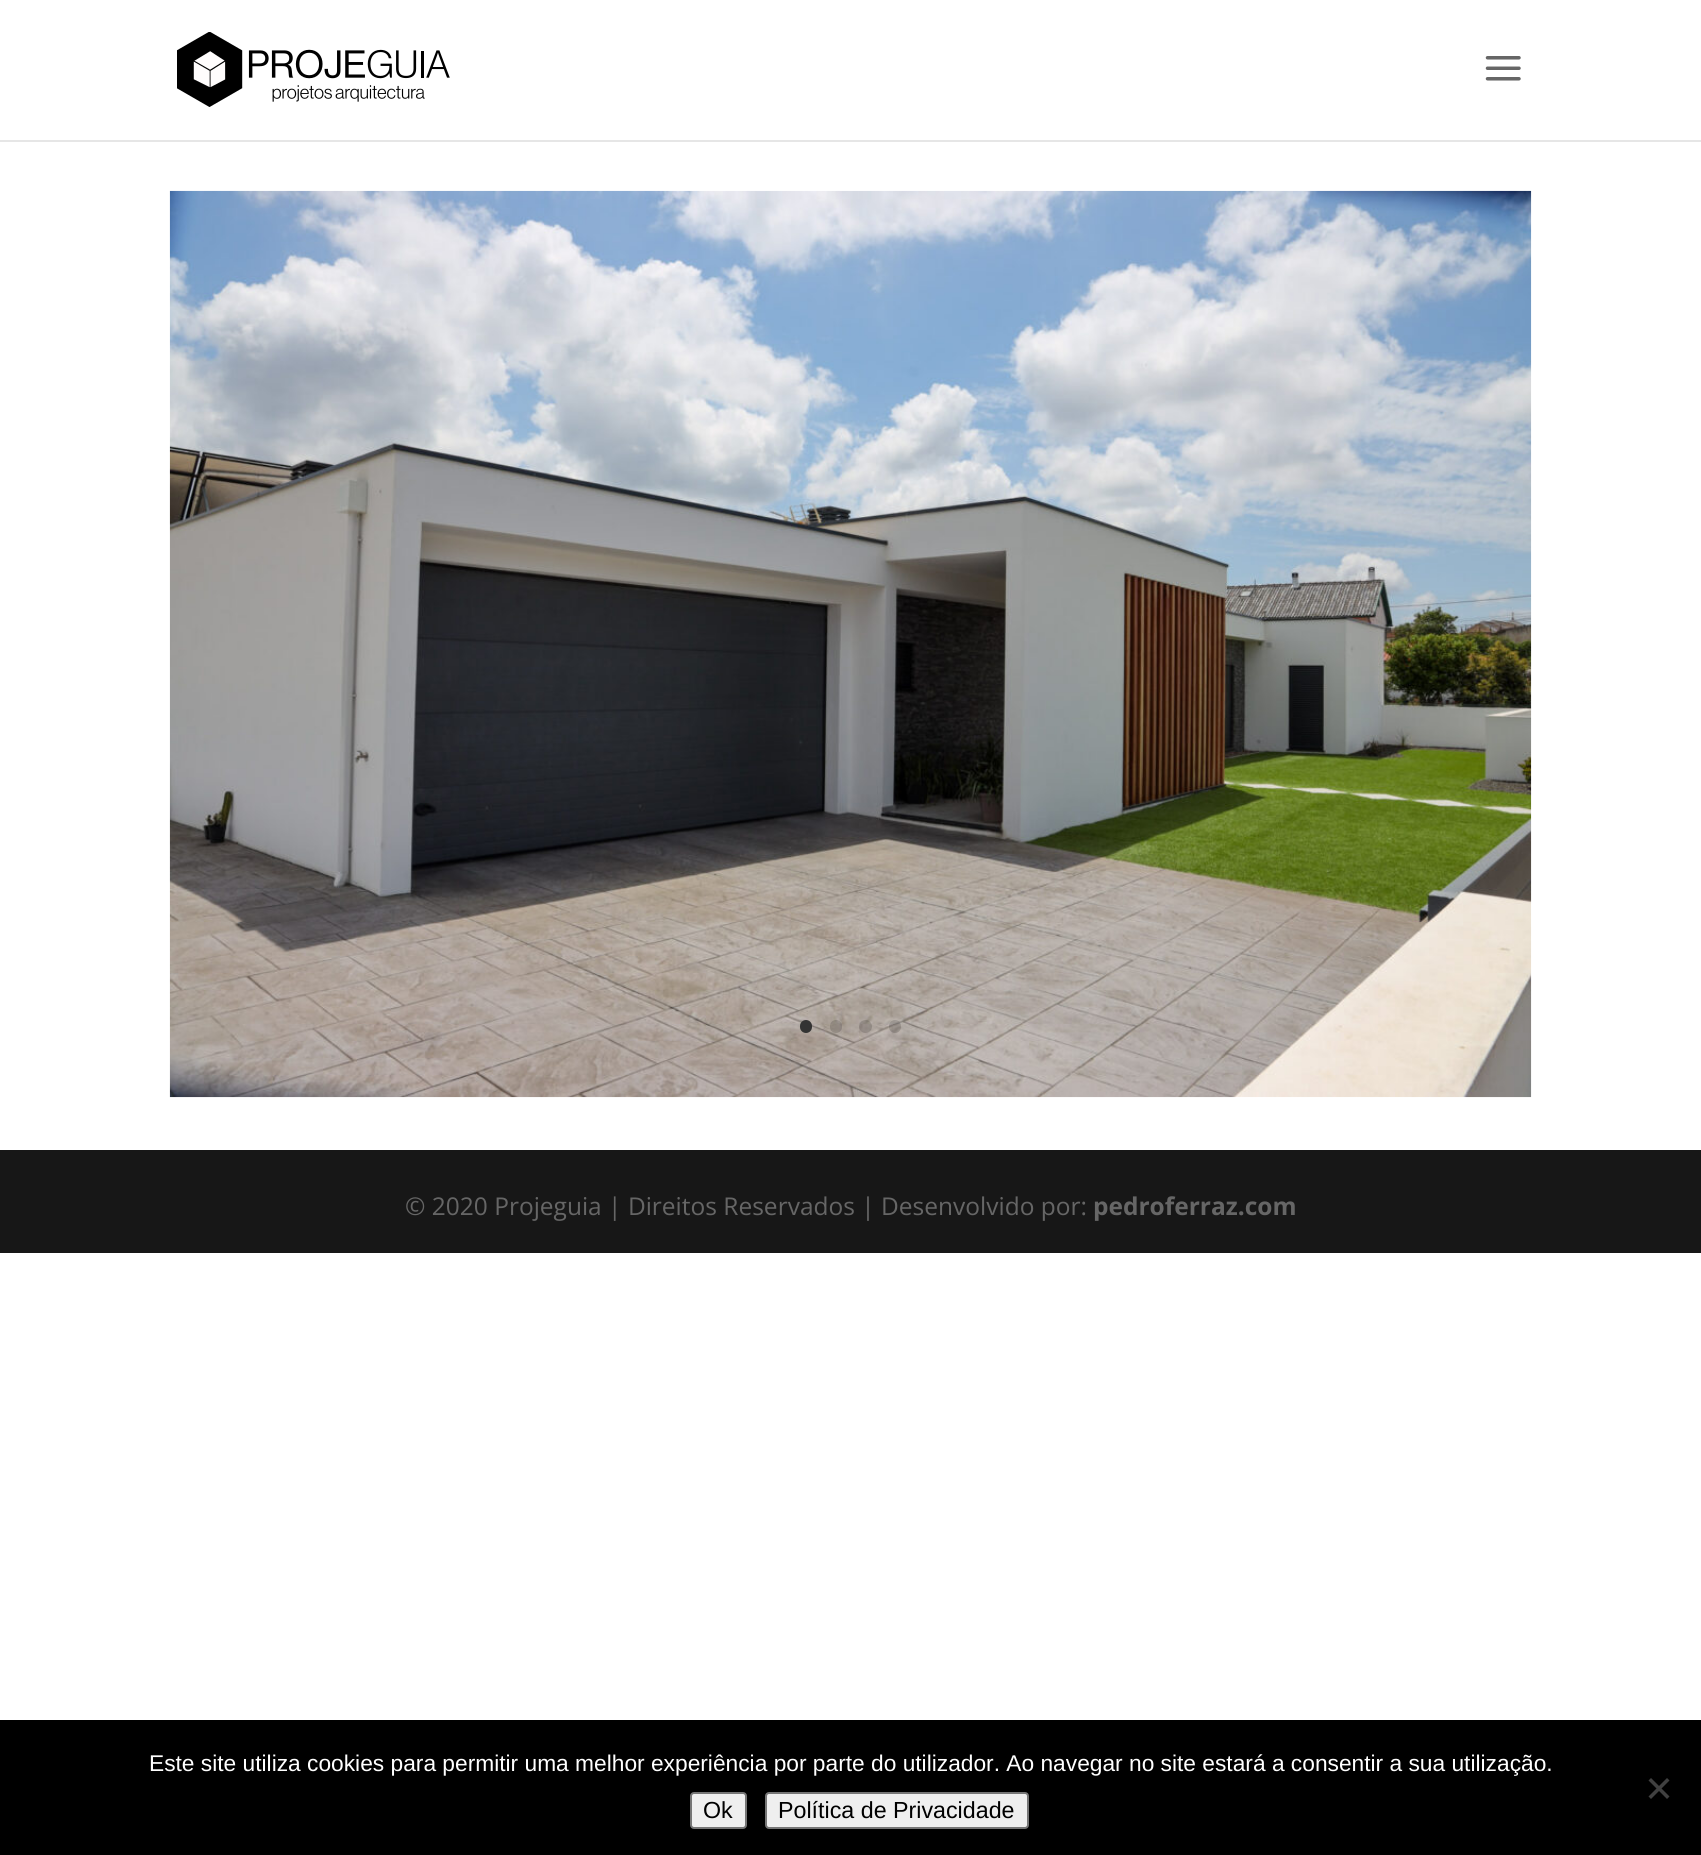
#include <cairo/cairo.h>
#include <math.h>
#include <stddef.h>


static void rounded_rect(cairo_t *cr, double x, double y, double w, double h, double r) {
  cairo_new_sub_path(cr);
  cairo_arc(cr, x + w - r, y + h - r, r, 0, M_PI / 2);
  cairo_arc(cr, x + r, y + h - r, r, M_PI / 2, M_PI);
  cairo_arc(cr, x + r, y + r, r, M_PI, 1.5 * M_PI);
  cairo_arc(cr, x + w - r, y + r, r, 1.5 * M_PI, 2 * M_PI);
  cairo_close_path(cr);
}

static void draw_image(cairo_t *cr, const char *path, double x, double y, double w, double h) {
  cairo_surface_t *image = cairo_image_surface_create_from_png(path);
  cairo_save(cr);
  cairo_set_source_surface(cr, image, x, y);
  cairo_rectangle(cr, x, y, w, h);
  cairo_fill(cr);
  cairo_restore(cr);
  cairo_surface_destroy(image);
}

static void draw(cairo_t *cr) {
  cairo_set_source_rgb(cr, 1, 1, 1);
  cairo_paint(cr);
  cairo_set_source_rgb(cr, 230 / 255.0, 230 / 255.0, 230 / 255.0);
  cairo_rectangle(cr, 0, 140, 1701, 2);
  cairo_fill(cr);
  draw_image(cr, "images/1.png", 177, 32, 273, 75);
  draw_image(cr, "images/2.png", 1485, 56, 36, 25);
  draw_image(cr, "images/3.png", 169, 190, 1363, 908);
  cairo_set_source_rgb(cr, 51 / 255.0, 51 / 255.0, 51 / 255.0);
  rounded_rect(cr, 800, 1020, 12, 13, 6);
  cairo_fill(cr);
  cairo_set_source_rgba(cr, 0, 0, 0, 0.15);
  rounded_rect(cr, 830, 1020, 12, 13, 6);
  cairo_fill(cr);
  cairo_arc(cr, 865.5, 1026.5, 6.5, 0, 2 * M_PI);
  cairo_fill(cr);
  rounded_rect(cr, 889, 1020, 12, 13, 6);
  cairo_fill(cr);
  cairo_set_source_rgb(cr, 23 / 255.0, 23 / 255.0, 23 / 255.0);
  cairo_rectangle(cr, 0, 1150, 1701, 103);
  cairo_fill(cr);
  cairo_set_source_rgb(cr, 0, 0, 0);
  cairo_rectangle(cr, 0, 1720, 1701, 135);
  cairo_fill(cr);
  cairo_set_source_rgb(cr, 64 / 255.0, 64 / 255.0, 64 / 255.0);
  cairo_new_path(cr);
  cairo_move_to(cr, 1667, 1778);
  cairo_line_to(cr, 1669.5, 1780.5);
  cairo_line_to(cr, 1651, 1799);
  cairo_line_to(cr, 1648.5, 1796.5);
  cairo_close_path(cr);
  cairo_fill(cr);
  cairo_new_path(cr);
  cairo_move_to(cr, 1648.5, 1780.5);
  cairo_line_to(cr, 1651, 1778);
  cairo_line_to(cr, 1669.5, 1796.5);
  cairo_line_to(cr, 1667, 1799);
  cairo_close_path(cr);
  cairo_fill(cr);
  cairo_set_source_rgb(cr, 239 / 255.0, 239 / 255.0, 239 / 255.0);
  rounded_rect(cr, 691, 1793, 55, 35, 3);
  cairo_fill_preserve(cr);
  cairo_set_source_rgb(cr, 118 / 255.0, 118 / 255.0, 118 / 255.0);
  cairo_stroke(cr);
  cairo_set_source_rgb(cr, 239 / 255.0, 239 / 255.0, 239 / 255.0);
  rounded_rect(cr, 766, 1793, 262, 35, 3);
  cairo_fill_preserve(cr);
  cairo_set_source_rgb(cr, 118 / 255.0, 118 / 255.0, 118 / 255.0);
  cairo_stroke(cr);
  cairo_select_font_face(cr, "Open Sans", CAIRO_FONT_SLANT_NORMAL, CAIRO_FONT_WEIGHT_NORMAL);
  cairo_set_font_size(cr, 24.5);
  cairo_set_source_rgb(cr, 102 / 255.0, 102 / 255.0, 102 / 255.0);
  cairo_move_to(cr, 405, 1215);
  cairo_show_text(cr, "© 2020 Projeguia | Direitos Reservados | Desenvolvido por:");
  cairo_select_font_face(cr, "Open Sans", CAIRO_FONT_SLANT_NORMAL, CAIRO_FONT_WEIGHT_BOLD);
  cairo_move_to(cr, 1093, 1215);
  cairo_show_text(cr, "pedroferraz.com");
  cairo_select_font_face(cr, "Liberation Sans", CAIRO_FONT_SLANT_NORMAL, CAIRO_FONT_WEIGHT_NORMAL);
  cairo_set_font_size(cr, 22.75);
  cairo_set_source_rgb(cr, 1, 1, 1);
  cairo_move_to(cr, 149, 1771);
  cairo_show_text(cr, "Este site utiliza cookies para permitir uma melhor experiência por parte do utilizador. Ao navegar no site estará a consentir a sua utilização.");
  cairo_set_font_size(cr, 23.25);
  cairo_set_source_rgb(cr, 0, 0, 0);
  cairo_move_to(cr, 703, 1818);
  cairo_show_text(cr, "Ok");
  cairo_move_to(cr, 778, 1818);
  cairo_show_text(cr, "Política de Privacidade");
}

int main(void) {
  cairo_surface_t *surface = cairo_image_surface_create(CAIRO_FORMAT_RGB24, 1701, 1855);
  cairo_t *cr = cairo_create(surface);
  cairo_font_options_t *options = cairo_font_options_create();
  cairo_font_options_set_hint_metrics(options, CAIRO_HINT_METRICS_OFF);
  cairo_font_options_set_hint_style(options, CAIRO_HINT_STYLE_NONE);
  cairo_set_font_options(cr, options);
  cairo_set_miter_limit(cr, 4);
  draw(cr);
  cairo_surface_write_to_png(surface, "out.png");
  cairo_font_options_destroy(options);
  cairo_destroy(cr);
  cairo_surface_destroy(surface);
  return 0;
}
